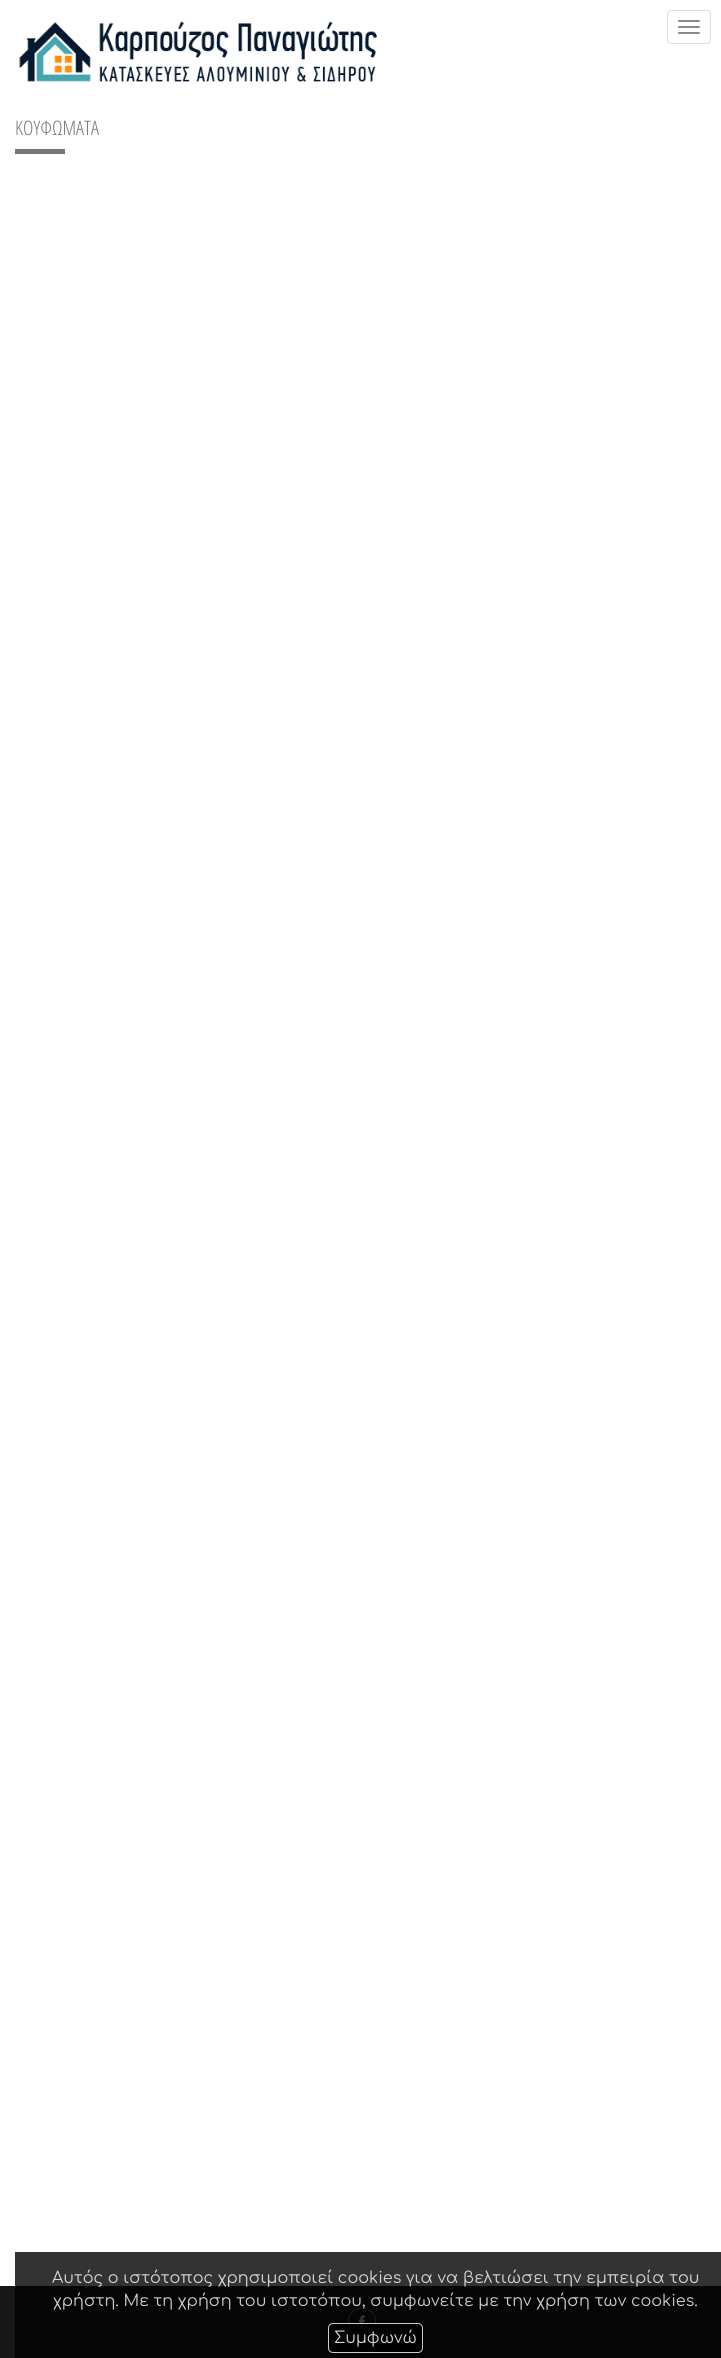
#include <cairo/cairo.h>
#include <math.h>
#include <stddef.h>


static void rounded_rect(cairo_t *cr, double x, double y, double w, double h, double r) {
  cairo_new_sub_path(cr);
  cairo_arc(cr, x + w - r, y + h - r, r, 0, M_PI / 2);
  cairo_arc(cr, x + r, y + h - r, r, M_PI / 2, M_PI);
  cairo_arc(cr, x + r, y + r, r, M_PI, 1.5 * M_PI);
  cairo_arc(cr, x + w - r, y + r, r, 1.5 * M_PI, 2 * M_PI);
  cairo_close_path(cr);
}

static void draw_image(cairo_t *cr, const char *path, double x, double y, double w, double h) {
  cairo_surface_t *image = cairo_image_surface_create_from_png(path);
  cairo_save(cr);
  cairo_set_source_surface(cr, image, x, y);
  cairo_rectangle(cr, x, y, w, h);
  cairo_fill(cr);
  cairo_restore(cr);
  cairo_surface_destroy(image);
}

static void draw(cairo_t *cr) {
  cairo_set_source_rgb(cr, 1, 1, 1);
  cairo_paint(cr);
  cairo_set_source_rgb(cr, 51 / 255.0, 51 / 255.0, 51 / 255.0);
  cairo_rectangle(cr, 15, 2252, 706, 34);
  cairo_fill(cr);
  draw_image(cr, "images/1.png", 19, 21, 358, 61);
  rounded_rect(cr, 667.5, 10.5, 43, 33, 3.5);
  cairo_set_source_rgb(cr, 221 / 255.0, 221 / 255.0, 221 / 255.0);
  cairo_set_line_width(cr, 1);
  cairo_stroke(cr);
  cairo_set_source_rgb(cr, 136 / 255.0, 136 / 255.0, 136 / 255.0);
  rounded_rect(cr, 678, 20, 22, 2, 1);
  cairo_fill(cr);
  rounded_rect(cr, 678, 26, 22, 2, 1);
  cairo_fill(cr);
  rounded_rect(cr, 678, 32, 22, 2, 1);
  cairo_fill(cr);
  cairo_set_source_rgb(cr, 119 / 255.0, 119 / 255.0, 119 / 255.0);
  cairo_rectangle(cr, 15, 149, 50, 5);
  cairo_fill(cr);
  cairo_set_source_rgb(cr, 5 / 255.0, 5 / 255.0, 5 / 255.0);
  cairo_rectangle(cr, 15, 2286, 706, 72);
  cairo_fill(cr);
  cairo_new_path(cr);
  cairo_move_to(cr, 362, 2308.5);
  cairo_curve_to(cr, 380, 2308.5, 380, 2333.5, 362, 2333.5);
  cairo_curve_to(cr, 344, 2333.5, 344, 2308.5, 362, 2308.5);
  cairo_close_path(cr);
  cairo_set_source_rgb(cr, 27 / 255.0, 29 / 255.0, 30 / 255.0);
  cairo_stroke(cr);
  draw_image(cr, "images/2.png", 358, 2315, 7, 14);
  cairo_set_source_rgba(cr, 0, 0, 0, 0.8);
  rounded_rect(cr, 328, 2323, 95, 30, 5);
  cairo_fill(cr);
  rounded_rect(cr, 328.5, 2323.5, 94, 29, 4.5);
  cairo_set_source_rgba(cr, 1, 1, 1, 0.8);
  cairo_stroke(cr);
  cairo_set_source_rgb(cr, 23 / 255.0, 23 / 255.0, 23 / 255.0);
  cairo_rectangle(cr, 0, 2286, 15, 72);
  cairo_fill(cr);
  cairo_select_font_face(cr, "Open Sans Condensed Light", CAIRO_FONT_SLANT_NORMAL, CAIRO_FONT_WEIGHT_NORMAL);
  cairo_set_font_size(cr, 20);
  cairo_set_source_rgb(cr, 119 / 255.0, 119 / 255.0, 119 / 255.0);
  cairo_move_to(cr, 15, 135);
  cairo_show_text(cr, "ΚΟΥΦΩΜΑΤΑ");
  cairo_select_font_face(cr, "Comfortaa", CAIRO_FONT_SLANT_NORMAL, CAIRO_FONT_WEIGHT_NORMAL);
  cairo_set_font_size(cr, 16);
  cairo_set_source_rgb(cr, 214 / 255.0, 214 / 255.0, 214 / 255.0);
  cairo_move_to(cr, 52, 2283);
  cairo_show_text(cr, "Αυτός ο ιστότοπος χρησιμοποιεί cookies για να βελτιώσει την εμπειρία του");
  cairo_set_source_rgb(cr, 205 / 255.0, 205 / 255.0, 205 / 255.0);
  cairo_move_to(cr, 53, 2306);
  cairo_show_text(cr, "χρήστη. Με τη χρήση του ιστοτόπου, συμφωνείτε με την χρήση των cookies.");
  cairo_set_source_rgb(cr, 214 / 255.0, 214 / 255.0, 214 / 255.0);
  cairo_move_to(cr, 334, 2343);
  cairo_show_text(cr, "Συμφωνώ");
}

int main(void) {
  cairo_surface_t *surface = cairo_image_surface_create(CAIRO_FORMAT_RGB24, 721, 2358);
  cairo_t *cr = cairo_create(surface);
  cairo_font_options_t *options = cairo_font_options_create();
  cairo_font_options_set_hint_metrics(options, CAIRO_HINT_METRICS_OFF);
  cairo_font_options_set_hint_style(options, CAIRO_HINT_STYLE_NONE);
  cairo_set_font_options(cr, options);
  cairo_set_miter_limit(cr, 4);
  draw(cr);
  cairo_surface_write_to_png(surface, "out.png");
  cairo_font_options_destroy(options);
  cairo_destroy(cr);
  cairo_surface_destroy(surface);
  return 0;
}
